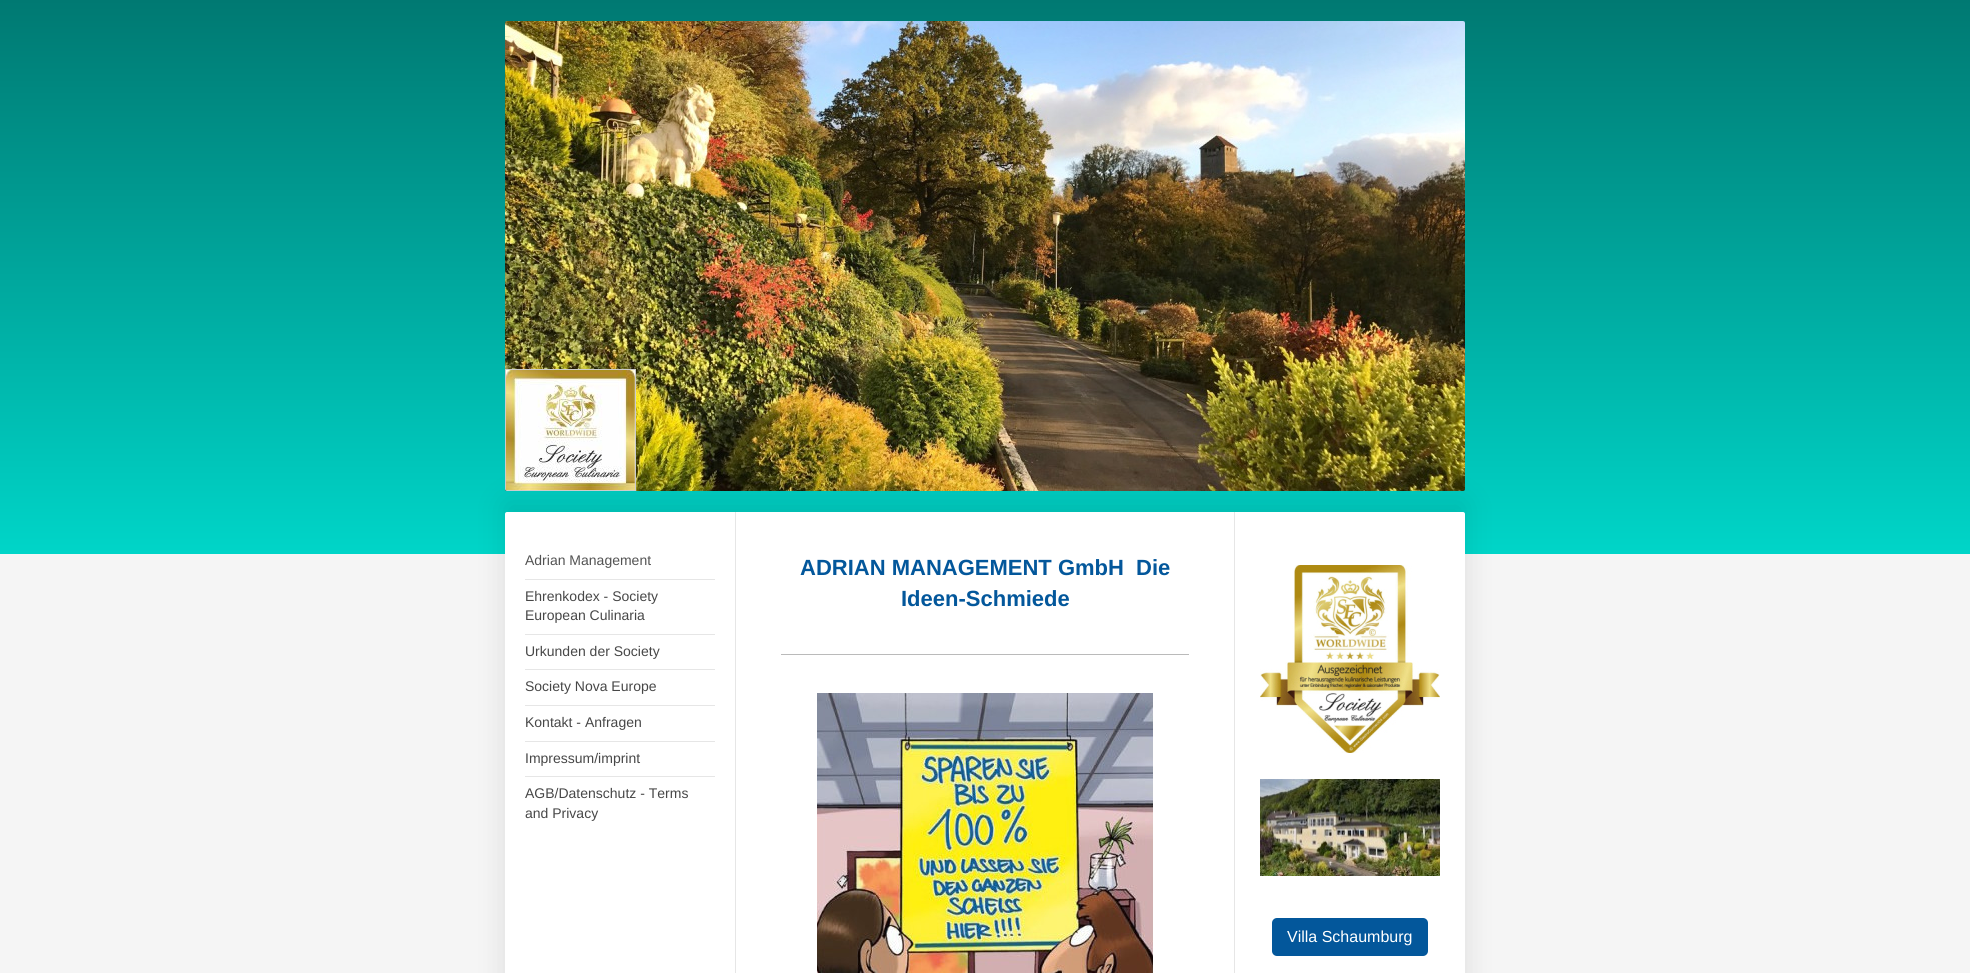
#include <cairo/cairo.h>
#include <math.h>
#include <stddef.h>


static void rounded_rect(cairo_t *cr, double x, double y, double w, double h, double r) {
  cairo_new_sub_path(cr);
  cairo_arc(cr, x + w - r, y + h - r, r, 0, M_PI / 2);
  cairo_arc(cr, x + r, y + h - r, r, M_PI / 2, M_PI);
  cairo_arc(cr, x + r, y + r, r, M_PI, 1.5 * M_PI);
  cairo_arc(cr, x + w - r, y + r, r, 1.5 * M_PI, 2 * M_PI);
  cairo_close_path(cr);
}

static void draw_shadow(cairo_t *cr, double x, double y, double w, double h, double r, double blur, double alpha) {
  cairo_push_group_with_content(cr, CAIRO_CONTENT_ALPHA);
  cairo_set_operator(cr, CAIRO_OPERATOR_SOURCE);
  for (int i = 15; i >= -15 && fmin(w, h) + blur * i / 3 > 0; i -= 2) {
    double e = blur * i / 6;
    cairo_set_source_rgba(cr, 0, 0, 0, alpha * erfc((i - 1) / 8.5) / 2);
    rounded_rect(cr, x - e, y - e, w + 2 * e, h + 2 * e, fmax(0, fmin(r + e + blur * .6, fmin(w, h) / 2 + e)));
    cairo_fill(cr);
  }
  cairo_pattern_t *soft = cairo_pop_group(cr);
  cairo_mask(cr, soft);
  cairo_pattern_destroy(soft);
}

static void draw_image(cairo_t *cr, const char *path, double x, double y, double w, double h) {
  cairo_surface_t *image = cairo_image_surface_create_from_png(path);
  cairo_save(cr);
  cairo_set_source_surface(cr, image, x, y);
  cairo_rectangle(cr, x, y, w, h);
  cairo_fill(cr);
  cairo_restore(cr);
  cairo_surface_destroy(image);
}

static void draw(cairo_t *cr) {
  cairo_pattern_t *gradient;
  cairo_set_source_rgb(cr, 245 / 255.0, 245 / 255.0, 245 / 255.0);
  cairo_paint(cr);
  gradient = cairo_pattern_create_linear(0, 554, 0, 0);
  cairo_pattern_add_color_stop_rgba(gradient, 0, 0, 213 / 255.0, 200 / 255.0, 1);
  cairo_pattern_add_color_stop_rgba(gradient, 1, 0, 121 / 255.0, 114 / 255.0, 1);
  cairo_set_source(cr, gradient);
  cairo_pattern_destroy(gradient);
  cairo_rectangle(cr, 0, 0, 1970, 554);
  cairo_fill(cr);
  draw_image(cr, "images/1.png", 505, 21, 960, 470);
  cairo_set_source_rgb(cr, 0, 0, 0);
  draw_shadow(cr, 505, 502, 960, 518, 2, 15, 0.1);
  cairo_set_source_rgb(cr, 204 / 255.0, 204 / 255.0, 204 / 255.0);
  cairo_set_fill_rule(cr, CAIRO_FILL_RULE_EVEN_ODD);
  cairo_new_path(cr);
  cairo_move_to(cr, 505, 369);
  cairo_line_to(cr, 505, 489);
  cairo_curve_to(cr, 505, 490, 506, 491, 507, 491);
  cairo_line_to(cr, 636, 491);
  cairo_line_to(cr, 636, 369);
  cairo_close_path(cr);
  cairo_move_to(cr, 506, 370);
  cairo_line_to(cr, 506, 490);
  cairo_line_to(cr, 635, 490);
  cairo_line_to(cr, 635, 370);
  cairo_close_path(cr);
  cairo_fill(cr);
  draw_image(cr, "images/2.png", 506, 370, 129, 120);
  cairo_set_source_rgb(cr, 1, 1, 1);
  rounded_rect(cr, 505, 512, 960, 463, 2);
  cairo_fill(cr);
  cairo_set_source_rgb(cr, 230 / 255.0, 230 / 255.0, 230 / 255.0);
  cairo_rectangle(cr, 525, 579, 190, 1);
  cairo_fill(cr);
  cairo_rectangle(cr, 525, 634, 190, 1);
  cairo_fill(cr);
  cairo_rectangle(cr, 525, 669, 190, 1);
  cairo_fill(cr);
  cairo_rectangle(cr, 525, 705, 190, 1);
  cairo_fill(cr);
  cairo_rectangle(cr, 525, 741, 190, 1);
  cairo_fill(cr);
  cairo_rectangle(cr, 525, 776, 190, 1);
  cairo_fill(cr);
  cairo_rectangle(cr, 1234, 512, 1, 461);
  cairo_fill(cr);
  cairo_rectangle(cr, 735, 512, 1, 461);
  cairo_fill(cr);
  cairo_set_source_rgb(cr, 186 / 255.0, 186 / 255.0, 186 / 255.0);
  cairo_rectangle(cr, 781, 654, 408, 1);
  cairo_fill(cr);
  draw_image(cr, "images/3.png", 817, 693, 336, 280);
  draw_image(cr, "images/4.png", 1260, 565, 180, 188);
  draw_image(cr, "images/5.png", 1260, 779, 180, 97);
  cairo_set_source_rgb(cr, 3 / 255.0, 87 / 255.0, 155 / 255.0);
  rounded_rect(cr, 1272, 918, 156, 38, 5);
  cairo_fill(cr);
  cairo_select_font_face(cr, "Liberation Sans", CAIRO_FONT_SLANT_NORMAL, CAIRO_FONT_WEIGHT_NORMAL);
  cairo_set_font_size(cr, 14);
  cairo_set_source_rgb(cr, 83 / 255.0, 83 / 255.0, 83 / 255.0);
  cairo_move_to(cr, 525, 565);
  cairo_show_text(cr, "Adrian Management");
  cairo_set_source_rgb(cr, 71 / 255.0, 71 / 255.0, 71 / 255.0);
  cairo_move_to(cr, 525, 601);
  cairo_show_text(cr, "Ehrenkodex - Society");
  cairo_move_to(cr, 525, 620);
  cairo_show_text(cr, "European Culinaria");
  cairo_move_to(cr, 525, 656);
  cairo_show_text(cr, "Urkunden der Society");
  cairo_move_to(cr, 525, 691);
  cairo_show_text(cr, "Society Nova Europe");
  cairo_move_to(cr, 525, 727);
  cairo_show_text(cr, "Kontakt - Anfragen");
  cairo_move_to(cr, 525, 763);
  cairo_show_text(cr, "Impressum/imprint");
  cairo_move_to(cr, 525, 798);
  cairo_show_text(cr, "AGB/Datenschutz - Terms");
  cairo_move_to(cr, 525, 818);
  cairo_show_text(cr, "and Privacy");
  cairo_select_font_face(cr, "Liberation Sans", CAIRO_FONT_SLANT_NORMAL, CAIRO_FONT_WEIGHT_BOLD);
  cairo_set_font_size(cr, 22);
  cairo_set_source_rgb(cr, 3 / 255.0, 87 / 255.0, 155 / 255.0);
  cairo_move_to(cr, 800, 575);
  cairo_show_text(cr, "ADRIAN MANAGEMENT GmbH  Die");
  cairo_move_to(cr, 901, 606);
  cairo_show_text(cr, "Ideen-Schmiede");
  cairo_select_font_face(cr, "Liberation Sans", CAIRO_FONT_SLANT_NORMAL, CAIRO_FONT_WEIGHT_NORMAL);
  cairo_set_font_size(cr, 16);
  cairo_set_source_rgb(cr, 1, 1, 1);
  cairo_move_to(cr, 1287, 942);
  cairo_show_text(cr, "Villa Schaumburg");
}

int main(void) {
  cairo_surface_t *surface = cairo_image_surface_create(CAIRO_FORMAT_RGB24, 1970, 973);
  cairo_t *cr = cairo_create(surface);
  cairo_font_options_t *options = cairo_font_options_create();
  cairo_font_options_set_hint_metrics(options, CAIRO_HINT_METRICS_OFF);
  cairo_font_options_set_hint_style(options, CAIRO_HINT_STYLE_NONE);
  cairo_set_font_options(cr, options);
  cairo_set_miter_limit(cr, 4);
  draw(cr);
  cairo_surface_write_to_png(surface, "out.png");
  cairo_font_options_destroy(options);
  cairo_destroy(cr);
  cairo_surface_destroy(surface);
  return 0;
}
